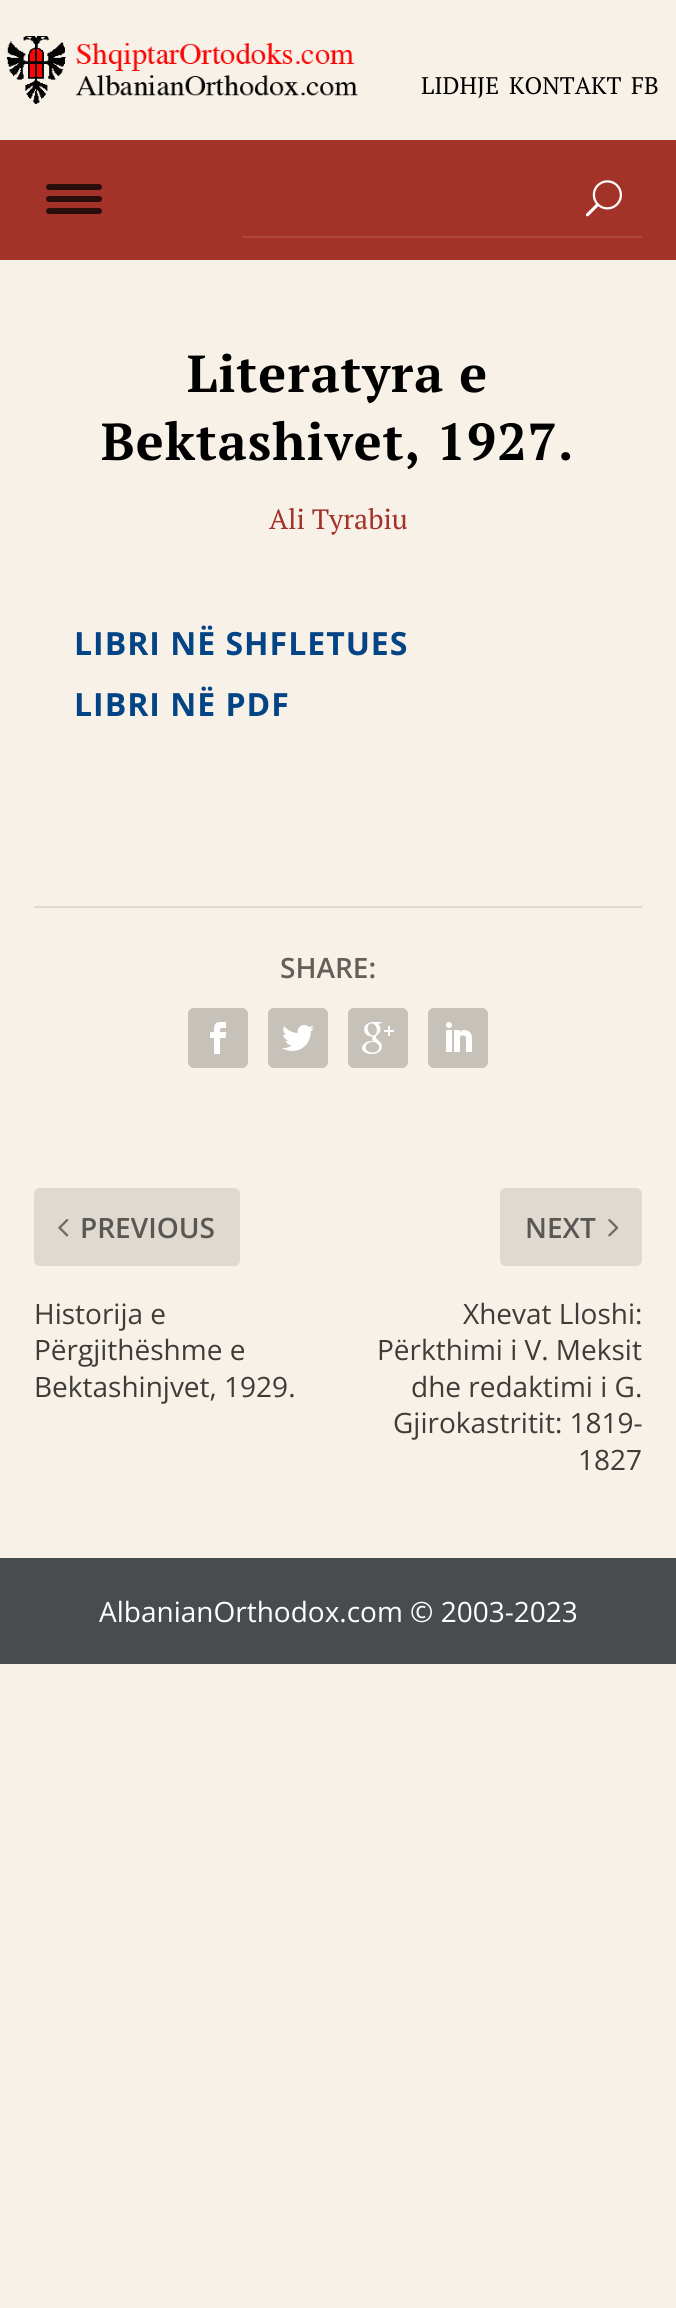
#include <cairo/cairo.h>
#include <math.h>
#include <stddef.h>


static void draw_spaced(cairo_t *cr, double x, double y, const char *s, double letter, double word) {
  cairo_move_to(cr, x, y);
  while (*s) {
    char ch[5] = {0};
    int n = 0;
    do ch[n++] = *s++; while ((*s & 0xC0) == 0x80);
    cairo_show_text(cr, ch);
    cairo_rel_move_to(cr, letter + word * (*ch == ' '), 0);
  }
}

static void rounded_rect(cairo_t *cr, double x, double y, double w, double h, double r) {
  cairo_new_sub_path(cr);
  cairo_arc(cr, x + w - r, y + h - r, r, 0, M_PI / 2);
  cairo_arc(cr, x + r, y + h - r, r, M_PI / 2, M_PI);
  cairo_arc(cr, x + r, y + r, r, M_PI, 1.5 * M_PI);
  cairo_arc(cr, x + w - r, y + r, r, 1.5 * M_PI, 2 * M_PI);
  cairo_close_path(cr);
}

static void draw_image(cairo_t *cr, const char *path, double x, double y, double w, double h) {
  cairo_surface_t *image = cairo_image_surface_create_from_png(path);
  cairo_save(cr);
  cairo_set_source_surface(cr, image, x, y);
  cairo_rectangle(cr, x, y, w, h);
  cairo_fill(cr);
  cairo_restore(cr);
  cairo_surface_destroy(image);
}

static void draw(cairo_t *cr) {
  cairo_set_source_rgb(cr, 248 / 255.0, 241 / 255.0, 231 / 255.0);
  cairo_paint(cr);
  draw_image(cr, "images/1.png", 6, 36, 352, 68);
  cairo_set_source_rgb(cr, 163 / 255.0, 50 / 255.0, 41 / 255.0);
  cairo_rectangle(cr, 0, 140, 676, 120);
  cairo_fill(cr);
  cairo_set_source_rgb(cr, 41 / 255.0, 13 / 255.0, 10 / 255.0);
  rounded_rect(cr, 46, 184, 56, 6, 3);
  cairo_fill(cr);
  rounded_rect(cr, 46, 196, 56, 6, 3);
  cairo_fill(cr);
  rounded_rect(cr, 46, 208, 56, 6, 3);
  cairo_fill(cr);
  cairo_set_source_rgb(cr, 172 / 255.0, 71 / 255.0, 62 / 255.0);
  cairo_rectangle(cr, 242, 236, 400, 2);
  cairo_fill(cr);
  draw_image(cr, "images/2.png", 585, 180, 37, 37);
  cairo_set_source_rgb(cr, 223 / 255.0, 217 / 255.0, 208 / 255.0);
  cairo_rectangle(cr, 34, 906, 608, 2);
  cairo_fill(cr);
  cairo_set_source_rgb(cr, 198 / 255.0, 193 / 255.0, 185 / 255.0);
  rounded_rect(cr, 188, 1008, 60, 60, 6);
  cairo_fill(cr);
  draw_image(cr, "images/3.png", 210, 1022, 16, 32);
  rounded_rect(cr, 268, 1008, 60, 60, 6);
  cairo_fill(cr);
  draw_image(cr, "images/4.png", 282, 1025, 32, 26);
  rounded_rect(cr, 348, 1008, 60, 60, 6);
  cairo_fill(cr);
  draw_image(cr, "images/5.png", 362, 1022, 32, 32);
  rounded_rect(cr, 428, 1008, 60, 60, 6);
  cairo_fill(cr);
  draw_image(cr, "images/6.png", 446, 1022, 26, 30);
  cairo_set_source_rgb(cr, 223 / 255.0, 217 / 255.0, 208 / 255.0);
  rounded_rect(cr, 34, 1188, 206, 78, 6);
  cairo_fill(cr);
  draw_image(cr, "images/7.png", 58, 1219, 11, 18);
  rounded_rect(cr, 500, 1188, 142, 78, 6);
  cairo_fill(cr);
  draw_image(cr, "images/8.png", 608, 1219, 11, 18);
  cairo_set_source_rgb(cr, 72 / 255.0, 76 / 255.0, 79 / 255.0);
  cairo_rectangle(cr, 0, 1558, 676, 106);
  cairo_fill(cr);
  cairo_select_font_face(cr, "PT Serif", CAIRO_FONT_SLANT_NORMAL, CAIRO_FONT_WEIGHT_NORMAL);
  cairo_set_font_size(cr, 24);
  cairo_set_source_rgb(cr, 0, 0, 0);
  cairo_move_to(cr, 421, 94);
  cairo_show_text(cr, "LIDHJE");
  cairo_move_to(cr, 509, 94);
  cairo_show_text(cr, "KONTAKT");
  cairo_move_to(cr, 631, 94);
  cairo_show_text(cr, "FB");
  cairo_select_font_face(cr, "PT Serif", CAIRO_FONT_SLANT_NORMAL, CAIRO_FONT_WEIGHT_BOLD);
  cairo_set_font_size(cr, 52);
  draw_spaced(cr, 187, 392, "Literatyra e", 1, 0);
  draw_spaced(cr, 101, 460, "Bektashivet, 1927.", 1, 0);
  cairo_select_font_face(cr, "PT Serif", CAIRO_FONT_SLANT_NORMAL, CAIRO_FONT_WEIGHT_NORMAL);
  cairo_set_font_size(cr, 28);
  cairo_set_source_rgb(cr, 163 / 255.0, 50 / 255.0, 41 / 255.0);
  cairo_move_to(cr, 269, 529);
  cairo_show_text(cr, "Ali Tyrabiu");
  cairo_select_font_face(cr, "Open Sans", CAIRO_FONT_SLANT_NORMAL, CAIRO_FONT_WEIGHT_BOLD);
  cairo_set_font_size(cr, 32);
  cairo_set_source_rgb(cr, 3 / 255.0, 68 / 255.0, 134 / 255.0);
  draw_spaced(cr, 74, 655, "LIBRI NË SHFLETUES", 1, 0);
  draw_spaced(cr, 74, 716, "LIBRI NË PDF", 1, 0);
  cairo_select_font_face(cr, "Open Sans SemiBold", CAIRO_FONT_SLANT_NORMAL, CAIRO_FONT_WEIGHT_NORMAL);
  cairo_set_font_size(cr, 28);
  cairo_set_source_rgb(cr, 99 / 255.0, 96 / 255.0, 92 / 255.0);
  cairo_move_to(cr, 280, 978);
  cairo_show_text(cr, "SHARE:");
  cairo_set_source_rgb(cr, 89 / 255.0, 87 / 255.0, 83 / 255.0);
  cairo_move_to(cr, 80, 1238);
  cairo_show_text(cr, "PREVIOUS");
  cairo_select_font_face(cr, "Open Sans", CAIRO_FONT_SLANT_NORMAL, CAIRO_FONT_WEIGHT_NORMAL);
  cairo_set_source_rgb(cr, 62 / 255.0, 60 / 255.0, 58 / 255.0);
  cairo_move_to(cr, 34, 1324);
  cairo_show_text(cr, "Historija e");
  cairo_move_to(cr, 34, 1360);
  cairo_show_text(cr, "Përgjithëshme e");
  cairo_move_to(cr, 34, 1397);
  cairo_show_text(cr, "Bektashinjvet, 1929.");
  cairo_select_font_face(cr, "Open Sans SemiBold", CAIRO_FONT_SLANT_NORMAL, CAIRO_FONT_WEIGHT_NORMAL);
  cairo_set_source_rgb(cr, 89 / 255.0, 87 / 255.0, 83 / 255.0);
  cairo_move_to(cr, 525, 1238);
  cairo_show_text(cr, "NEXT");
  cairo_select_font_face(cr, "Open Sans", CAIRO_FONT_SLANT_NORMAL, CAIRO_FONT_WEIGHT_NORMAL);
  cairo_set_source_rgb(cr, 62 / 255.0, 60 / 255.0, 58 / 255.0);
  cairo_move_to(cr, 463, 1324);
  cairo_show_text(cr, "Xhevat Lloshi:");
  cairo_move_to(cr, 377, 1360);
  cairo_show_text(cr, "Përkthimi i V. Meksit");
  cairo_move_to(cr, 411, 1397);
  cairo_show_text(cr, "dhe redaktimi i G.");
  cairo_move_to(cr, 393, 1433);
  cairo_show_text(cr, "Gjirokastritit: 1819-");
  cairo_move_to(cr, 578, 1470);
  cairo_show_text(cr, "1827");
  cairo_set_source_rgb(cr, 1, 1, 1);
  cairo_move_to(cr, 99, 1622);
  cairo_show_text(cr, "AlbanianOrthodox.com © 2003-2023");
}

int main(void) {
  cairo_surface_t *surface = cairo_image_surface_create(CAIRO_FORMAT_RGB24, 676, 2308);
  cairo_t *cr = cairo_create(surface);
  cairo_font_options_t *options = cairo_font_options_create();
  cairo_font_options_set_hint_metrics(options, CAIRO_HINT_METRICS_OFF);
  cairo_font_options_set_hint_style(options, CAIRO_HINT_STYLE_NONE);
  cairo_set_font_options(cr, options);
  cairo_set_miter_limit(cr, 4);
  draw(cr);
  cairo_surface_write_to_png(surface, "out.png");
  cairo_font_options_destroy(options);
  cairo_destroy(cr);
  cairo_surface_destroy(surface);
  return 0;
}
